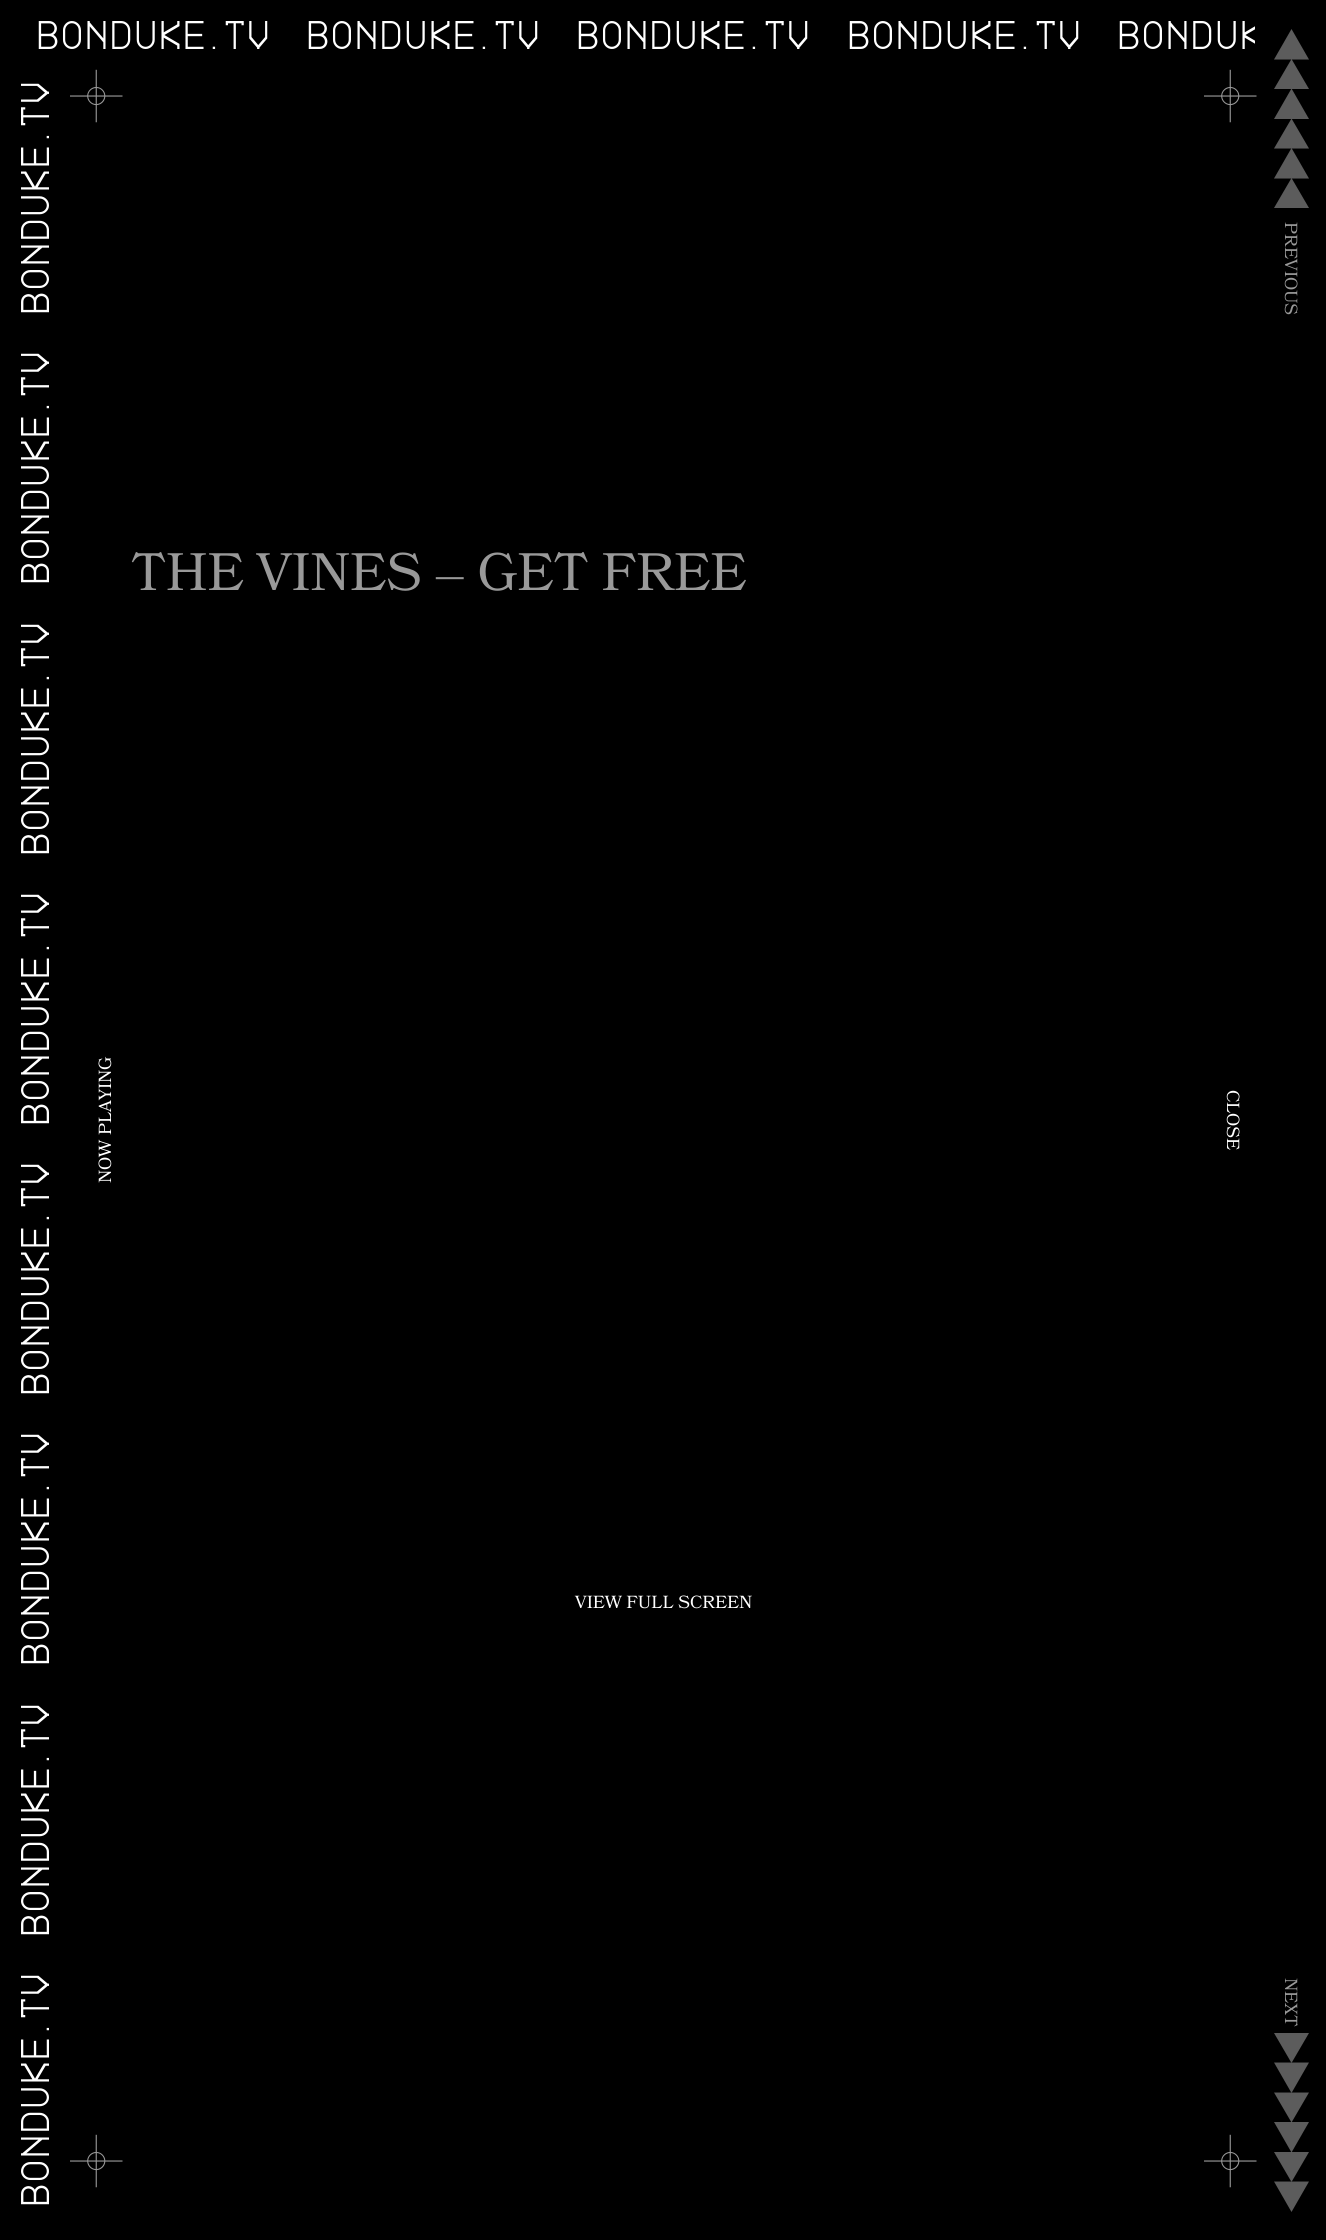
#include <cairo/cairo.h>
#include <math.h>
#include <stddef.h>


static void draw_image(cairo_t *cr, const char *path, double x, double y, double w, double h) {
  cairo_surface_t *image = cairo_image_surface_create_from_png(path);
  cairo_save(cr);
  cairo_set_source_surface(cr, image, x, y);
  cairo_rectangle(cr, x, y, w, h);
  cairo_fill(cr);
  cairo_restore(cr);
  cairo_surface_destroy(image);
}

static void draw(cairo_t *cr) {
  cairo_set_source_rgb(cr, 0, 0, 0);
  cairo_paint(cr);
  draw_image(cr, "images/1.png", 70, 69, 53, 54);
  draw_image(cr, "images/1.png", 1204, 69, 53, 54);
  draw_image(cr, "images/1.png", 70, 2134, 53, 54);
  draw_image(cr, "images/1.png", 1204, 2134, 53, 54);
  cairo_set_source_rgb(cr, 92 / 255.0, 92 / 255.0, 92 / 255.0);
  cairo_new_path(cr);
  cairo_move_to(cr, 1309, 59.5);
  cairo_line_to(cr, 1291.5, 29);
  cairo_line_to(cr, 1274, 59.5);
  cairo_close_path(cr);
  cairo_fill(cr);
  cairo_set_source_rgba(cr, 153 / 255.0, 153 / 255.0, 153 / 255.0, 0.6);
  cairo_new_path(cr);
  cairo_move_to(cr, 1309, 89);
  cairo_line_to(cr, 1291.5, 59);
  cairo_line_to(cr, 1274, 89);
  cairo_close_path(cr);
  cairo_fill(cr);
  cairo_set_source_rgb(cr, 92 / 255.0, 92 / 255.0, 92 / 255.0);
  cairo_new_path(cr);
  cairo_move_to(cr, 1309, 119);
  cairo_line_to(cr, 1291.5, 88.5);
  cairo_line_to(cr, 1274, 119);
  cairo_close_path(cr);
  cairo_fill(cr);
  cairo_new_path(cr);
  cairo_move_to(cr, 1309, 148.5);
  cairo_line_to(cr, 1291.5, 118.5);
  cairo_line_to(cr, 1274, 148.5);
  cairo_close_path(cr);
  cairo_fill(cr);
  cairo_set_source_rgba(cr, 153 / 255.0, 153 / 255.0, 153 / 255.0, 0.6);
  cairo_new_path(cr);
  cairo_move_to(cr, 1309, 178.5);
  cairo_line_to(cr, 1291.5, 148);
  cairo_line_to(cr, 1274, 178.5);
  cairo_close_path(cr);
  cairo_fill(cr);
  cairo_new_path(cr);
  cairo_move_to(cr, 1309, 208);
  cairo_line_to(cr, 1291.5, 178);
  cairo_line_to(cr, 1274, 208);
  cairo_close_path(cr);
  cairo_fill(cr);
  cairo_set_source_rgb(cr, 92 / 255.0, 92 / 255.0, 92 / 255.0);
  cairo_new_path(cr);
  cairo_move_to(cr, 1274, 2033);
  cairo_line_to(cr, 1291.5, 2063);
  cairo_line_to(cr, 1309, 2033);
  cairo_close_path(cr);
  cairo_fill(cr);
  cairo_new_path(cr);
  cairo_move_to(cr, 1274, 2062.5);
  cairo_line_to(cr, 1291.5, 2093);
  cairo_line_to(cr, 1309, 2062.5);
  cairo_close_path(cr);
  cairo_fill(cr);
  cairo_new_path(cr);
  cairo_move_to(cr, 1274, 2092.5);
  cairo_line_to(cr, 1291.5, 2122.5);
  cairo_line_to(cr, 1309, 2092.5);
  cairo_close_path(cr);
  cairo_fill(cr);
  cairo_set_source_rgba(cr, 153 / 255.0, 153 / 255.0, 153 / 255.0, 0.6);
  cairo_new_path(cr);
  cairo_move_to(cr, 1274, 2122);
  cairo_line_to(cr, 1291.5, 2152.5);
  cairo_line_to(cr, 1309, 2122);
  cairo_close_path(cr);
  cairo_fill(cr);
  cairo_new_path(cr);
  cairo_move_to(cr, 1274, 2152);
  cairo_line_to(cr, 1291.5, 2182);
  cairo_line_to(cr, 1309, 2152);
  cairo_close_path(cr);
  cairo_fill(cr);
  cairo_set_source_rgb(cr, 92 / 255.0, 92 / 255.0, 92 / 255.0);
  cairo_new_path(cr);
  cairo_move_to(cr, 1274, 2181.5);
  cairo_line_to(cr, 1291.5, 2212);
  cairo_line_to(cr, 1309, 2181.5);
  cairo_close_path(cr);
  cairo_fill(cr);
  cairo_select_font_face(cr, "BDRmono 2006 Light", CAIRO_FONT_SLANT_NORMAL, CAIRO_FONT_WEIGHT_NORMAL);
  cairo_set_font_size(cr, 35);
  cairo_set_source_rgb(cr, 1, 1, 1);
  cairo_move_to(cr, 38, 49);
  cairo_show_text(cr, "BONDUKE.TV");
  cairo_move_to(cr, 308, 49);
  cairo_show_text(cr, "BONDUKE.TV");
  cairo_move_to(cr, 578, 49);
  cairo_show_text(cr, "BONDUKE.TV");
  cairo_move_to(cr, 849, 49);
  cairo_show_text(cr, "BONDUKE.TV");
  cairo_save(cr);
  cairo_rectangle(cr, 21, 14, 1234, 42);
  cairo_clip(cr);
  cairo_move_to(cr, 1119, 49);
  cairo_show_text(cr, "BONDUK");
  cairo_restore(cr);
  cairo_save(cr);
  cairo_translate(cr, 49, 313);
  cairo_rotate(cr, -90 * M_PI / 180);
  cairo_move_to(cr, 0, 0);
  cairo_show_text(cr, "BONDUKE.TV");
  cairo_restore(cr);
  cairo_save(cr);
  cairo_translate(cr, 49, 583);
  cairo_rotate(cr, -90 * M_PI / 180);
  cairo_move_to(cr, 0, 0);
  cairo_show_text(cr, "BONDUKE.TV");
  cairo_restore(cr);
  cairo_save(cr);
  cairo_translate(cr, 49, 854);
  cairo_rotate(cr, -90 * M_PI / 180);
  cairo_move_to(cr, 0, 0);
  cairo_show_text(cr, "BONDUKE.TV");
  cairo_restore(cr);
  cairo_save(cr);
  cairo_translate(cr, 49, 1124);
  cairo_rotate(cr, -90 * M_PI / 180);
  cairo_move_to(cr, 0, 0);
  cairo_show_text(cr, "BONDUKE.TV");
  cairo_restore(cr);
  cairo_save(cr);
  cairo_translate(cr, 49, 1394);
  cairo_rotate(cr, -90 * M_PI / 180);
  cairo_move_to(cr, 0, 0);
  cairo_show_text(cr, "BONDUKE.TV");
  cairo_restore(cr);
  cairo_save(cr);
  cairo_translate(cr, 49, 1664);
  cairo_rotate(cr, -90 * M_PI / 180);
  cairo_move_to(cr, 0, 0);
  cairo_show_text(cr, "BONDUKE.TV");
  cairo_restore(cr);
  cairo_save(cr);
  cairo_translate(cr, 49, 1935);
  cairo_rotate(cr, -90 * M_PI / 180);
  cairo_move_to(cr, 0, 0);
  cairo_show_text(cr, "BONDUKE.TV");
  cairo_restore(cr);
  cairo_save(cr);
  cairo_translate(cr, 49, 2205);
  cairo_rotate(cr, -90 * M_PI / 180);
  cairo_move_to(cr, 0, 0);
  cairo_show_text(cr, "BONDUKE.TV");
  cairo_restore(cr);
  cairo_select_font_face(cr, "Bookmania", CAIRO_FONT_SLANT_NORMAL, CAIRO_FONT_WEIGHT_NORMAL);
  cairo_set_font_size(cr, 17.5);
  cairo_set_source_rgb(cr, 153 / 255.0, 153 / 255.0, 153 / 255.0);
  cairo_save(cr);
  cairo_translate(cr, 1285, 222);
  cairo_rotate(cr, 90 * M_PI / 180);
  cairo_move_to(cr, 0, 0);
  cairo_show_text(cr, "P");
  cairo_restore(cr);
  cairo_save(cr);
  cairo_translate(cr, 1285, 234);
  cairo_rotate(cr, 90 * M_PI / 180);
  cairo_move_to(cr, 0, 0);
  cairo_show_text(cr, "R");
  cairo_restore(cr);
  cairo_save(cr);
  cairo_translate(cr, 1285, 247);
  cairo_rotate(cr, 90 * M_PI / 180);
  cairo_move_to(cr, 0, 0);
  cairo_show_text(cr, "E");
  cairo_restore(cr);
  cairo_save(cr);
  cairo_translate(cr, 1285, 259);
  cairo_rotate(cr, 90 * M_PI / 180);
  cairo_move_to(cr, 0, 0);
  cairo_show_text(cr, "V");
  cairo_restore(cr);
  cairo_save(cr);
  cairo_translate(cr, 1285, 271);
  cairo_rotate(cr, 90 * M_PI / 180);
  cairo_move_to(cr, 0, 0);
  cairo_show_text(cr, "I");
  cairo_restore(cr);
  cairo_save(cr);
  cairo_translate(cr, 1285, 277);
  cairo_rotate(cr, 90 * M_PI / 180);
  cairo_move_to(cr, 0, 0);
  cairo_show_text(cr, "O");
  cairo_restore(cr);
  cairo_save(cr);
  cairo_translate(cr, 1285, 290);
  cairo_rotate(cr, 90 * M_PI / 180);
  cairo_move_to(cr, 0, 0);
  cairo_show_text(cr, "U");
  cairo_restore(cr);
  cairo_save(cr);
  cairo_translate(cr, 1285, 303);
  cairo_rotate(cr, 90 * M_PI / 180);
  cairo_move_to(cr, 0, 0);
  cairo_show_text(cr, "S");
  cairo_restore(cr);
  cairo_set_source_rgb(cr, 1, 1, 1);
  cairo_save(cr);
  cairo_translate(cr, 111, 1070);
  cairo_rotate(cr, -90 * M_PI / 180);
  cairo_move_to(cr, 0, 0);
  cairo_show_text(cr, "G");
  cairo_restore(cr);
  cairo_save(cr);
  cairo_translate(cr, 111, 1083);
  cairo_rotate(cr, -90 * M_PI / 180);
  cairo_move_to(cr, 0, 0);
  cairo_show_text(cr, "N");
  cairo_restore(cr);
  cairo_save(cr);
  cairo_translate(cr, 111, 1089);
  cairo_rotate(cr, -90 * M_PI / 180);
  cairo_move_to(cr, 0, 0);
  cairo_show_text(cr, "I");
  cairo_restore(cr);
  cairo_save(cr);
  cairo_translate(cr, 111, 1100);
  cairo_rotate(cr, -90 * M_PI / 180);
  cairo_move_to(cr, 0, 0);
  cairo_show_text(cr, "Y");
  cairo_restore(cr);
  cairo_save(cr);
  cairo_translate(cr, 111, 1112);
  cairo_rotate(cr, -90 * M_PI / 180);
  cairo_move_to(cr, 0, 0);
  cairo_show_text(cr, "A");
  cairo_restore(cr);
  cairo_save(cr);
  cairo_translate(cr, 111, 1123);
  cairo_rotate(cr, -90 * M_PI / 180);
  cairo_move_to(cr, 0, 0);
  cairo_show_text(cr, "L");
  cairo_restore(cr);
  cairo_save(cr);
  cairo_translate(cr, 111, 1135);
  cairo_rotate(cr, -90 * M_PI / 180);
  cairo_move_to(cr, 0, 0);
  cairo_show_text(cr, "P");
  cairo_restore(cr);
  cairo_save(cr);
  cairo_translate(cr, 111, 1157);
  cairo_rotate(cr, -90 * M_PI / 180);
  cairo_move_to(cr, 0, 0);
  cairo_show_text(cr, "W");
  cairo_restore(cr);
  cairo_save(cr);
  cairo_translate(cr, 111, 1170);
  cairo_rotate(cr, -90 * M_PI / 180);
  cairo_move_to(cr, 0, 0);
  cairo_show_text(cr, "O");
  cairo_restore(cr);
  cairo_save(cr);
  cairo_translate(cr, 111, 1183);
  cairo_rotate(cr, -90 * M_PI / 180);
  cairo_move_to(cr, 0, 0);
  cairo_show_text(cr, "N");
  cairo_restore(cr);
  cairo_set_font_size(cr, 52.5);
  cairo_set_source_rgb(cr, 153 / 255.0, 153 / 255.0, 153 / 255.0);
  cairo_move_to(cr, 131, 590);
  cairo_show_text(cr, "THE VINES – GET FREE");
  cairo_set_font_size(cr, 17.5);
  cairo_set_source_rgb(cr, 1, 1, 1);
  cairo_move_to(cr, 575, 1608);
  cairo_show_text(cr, "VIEW FULL SCREEN");
  cairo_save(cr);
  cairo_translate(cr, 1227, 1090);
  cairo_rotate(cr, 90 * M_PI / 180);
  cairo_move_to(cr, 0, 0);
  cairo_show_text(cr, "C");
  cairo_restore(cr);
  cairo_save(cr);
  cairo_translate(cr, 1227, 1102);
  cairo_rotate(cr, 90 * M_PI / 180);
  cairo_move_to(cr, 0, 0);
  cairo_show_text(cr, "L");
  cairo_restore(cr);
  cairo_save(cr);
  cairo_translate(cr, 1227, 1113);
  cairo_rotate(cr, 90 * M_PI / 180);
  cairo_move_to(cr, 0, 0);
  cairo_show_text(cr, "O");
  cairo_restore(cr);
  cairo_save(cr);
  cairo_translate(cr, 1227, 1126);
  cairo_rotate(cr, 90 * M_PI / 180);
  cairo_move_to(cr, 0, 0);
  cairo_show_text(cr, "S");
  cairo_restore(cr);
  cairo_save(cr);
  cairo_translate(cr, 1227, 1138);
  cairo_rotate(cr, 90 * M_PI / 180);
  cairo_move_to(cr, 0, 0);
  cairo_show_text(cr, "E");
  cairo_restore(cr);
  cairo_set_source_rgb(cr, 153 / 255.0, 153 / 255.0, 153 / 255.0);
  cairo_save(cr);
  cairo_translate(cr, 1285, 1978);
  cairo_rotate(cr, 90 * M_PI / 180);
  cairo_move_to(cr, 0, 0);
  cairo_show_text(cr, "N");
  cairo_restore(cr);
  cairo_save(cr);
  cairo_translate(cr, 1285, 1991);
  cairo_rotate(cr, 90 * M_PI / 180);
  cairo_move_to(cr, 0, 0);
  cairo_show_text(cr, "E");
  cairo_restore(cr);
  cairo_save(cr);
  cairo_translate(cr, 1285, 2003);
  cairo_rotate(cr, 90 * M_PI / 180);
  cairo_move_to(cr, 0, 0);
  cairo_show_text(cr, "X");
  cairo_restore(cr);
  cairo_save(cr);
  cairo_translate(cr, 1285, 2015);
  cairo_rotate(cr, 90 * M_PI / 180);
  cairo_move_to(cr, 0, 0);
  cairo_show_text(cr, "T");
  cairo_restore(cr);
}

int main(void) {
  cairo_surface_t *surface = cairo_image_surface_create(CAIRO_FORMAT_RGB24, 1326, 2240);
  cairo_t *cr = cairo_create(surface);
  cairo_font_options_t *options = cairo_font_options_create();
  cairo_font_options_set_hint_metrics(options, CAIRO_HINT_METRICS_OFF);
  cairo_font_options_set_hint_style(options, CAIRO_HINT_STYLE_NONE);
  cairo_set_font_options(cr, options);
  cairo_set_miter_limit(cr, 4);
  draw(cr);
  cairo_surface_write_to_png(surface, "out.png");
  cairo_font_options_destroy(options);
  cairo_destroy(cr);
  cairo_surface_destroy(surface);
  return 0;
}
